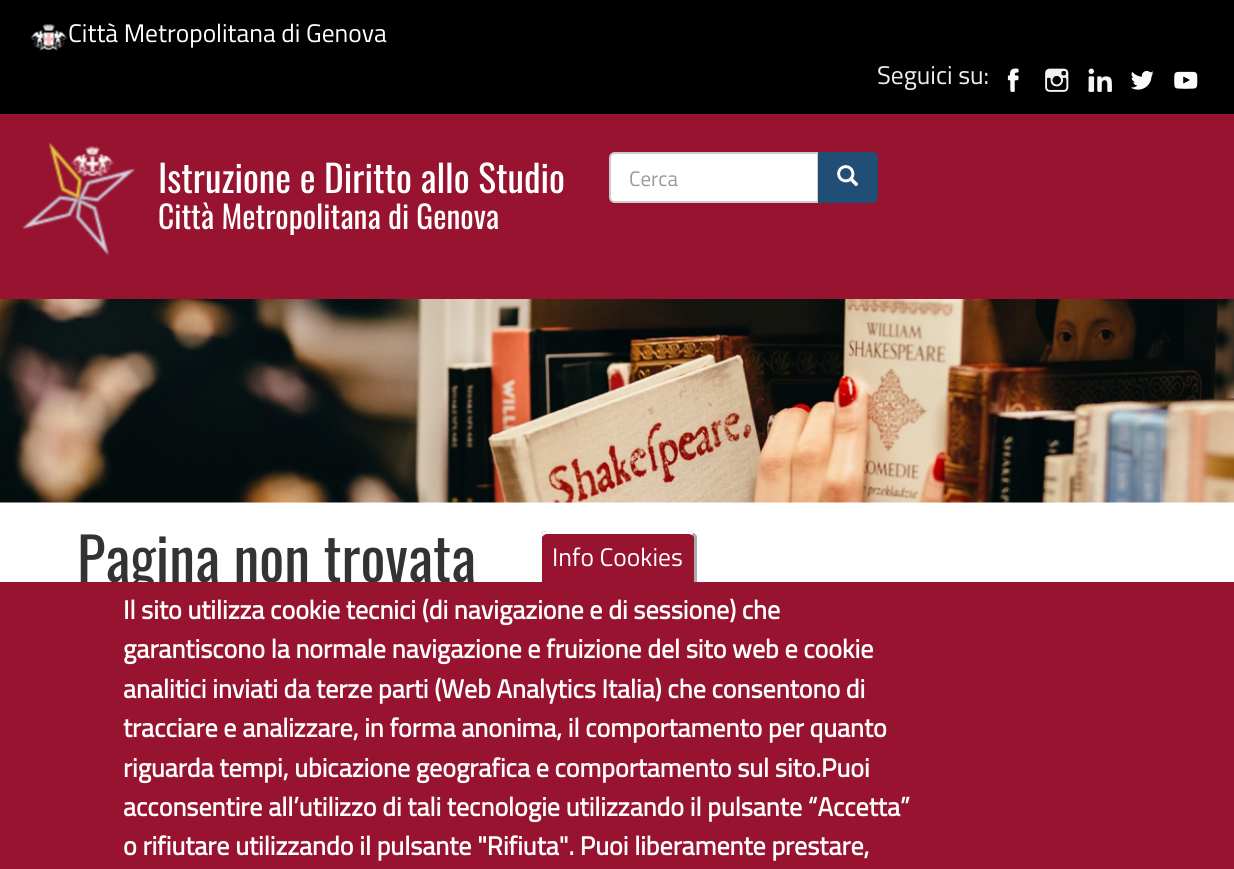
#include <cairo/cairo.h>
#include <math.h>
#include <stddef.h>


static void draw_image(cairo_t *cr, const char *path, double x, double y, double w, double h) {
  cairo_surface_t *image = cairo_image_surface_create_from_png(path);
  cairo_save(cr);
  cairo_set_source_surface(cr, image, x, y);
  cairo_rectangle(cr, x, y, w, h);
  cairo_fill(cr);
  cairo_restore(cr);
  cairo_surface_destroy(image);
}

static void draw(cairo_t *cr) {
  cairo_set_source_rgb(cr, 1, 1, 1);
  cairo_paint(cr);
  cairo_set_source_rgb(cr, 151 / 255.0, 19 / 255.0, 47 / 255.0);
  cairo_rectangle(cr, 0, 114, 1234, 185);
  cairo_fill(cr);
  cairo_set_source_rgb(cr, 0, 0, 0);
  cairo_rectangle(cr, 0, 0, 1234, 114);
  cairo_fill(cr);
  draw_image(cr, "images/1.png", 30, 23, 38, 28);
  draw_image(cr, "images/2.png", 1007, 68, 12, 24);
  draw_image(cr, "images/3.png", 1045, 68, 24, 24);
  draw_image(cr, "images/4.png", 1088, 68, 24, 24);
  draw_image(cr, "images/5.png", 1130, 70, 24, 20);
  draw_image(cr, "images/6.png", 1174, 71, 24, 18);
  draw_image(cr, "images/7.png", 22, 142, 114, 114);
  cairo_set_source_rgb(cr, 1, 1, 1);
  cairo_new_path(cr);
  cairo_move_to(cr, 615, 153);
  cairo_line_to(cr, 818, 153);
  cairo_line_to(cr, 818, 202);
  cairo_line_to(cr, 615, 202);
  cairo_curve_to(cr, 612, 202, 610, 200, 610, 197);
  cairo_line_to(cr, 610, 158);
  cairo_curve_to(cr, 610, 155, 612, 153, 615, 153);
  cairo_close_path(cr);
  cairo_fill_preserve(cr);
  cairo_set_source_rgb(cr, 204 / 255.0, 204 / 255.0, 204 / 255.0);
  cairo_stroke(cr);
  cairo_set_source_rgb(cr, 32 / 255.0, 78 / 255.0, 117 / 255.0);
  cairo_new_path(cr);
  cairo_move_to(cr, 819, 153);
  cairo_line_to(cr, 872, 153);
  cairo_curve_to(cr, 875, 153, 877, 155, 877, 158);
  cairo_line_to(cr, 877, 197);
  cairo_curve_to(cr, 877, 200, 875, 202, 872, 202);
  cairo_line_to(cr, 819, 202);
  cairo_close_path(cr);
  cairo_fill_preserve(cr);
  cairo_stroke(cr);
  draw_image(cr, "images/8.png", 837, 165, 22, 22);
  draw_image(cr, "images/9.png", 0, 299, 1234, 204);
  cairo_set_source_rgb(cr, 151 / 255.0, 19 / 255.0, 47 / 255.0);
  cairo_new_path(cr);
  cairo_move_to(cr, 547, 531);
  cairo_line_to(cr, 688, 531);
  cairo_curve_to(cr, 692.5, 531, 696, 534.5, 696, 539);
  cairo_line_to(cr, 696, 582);
  cairo_line_to(cr, 539, 582);
  cairo_line_to(cr, 539, 539);
  cairo_curve_to(cr, 539, 534.5, 542.5, 531, 547, 531);
  cairo_close_path(cr);
  cairo_fill(cr);
  cairo_set_source_rgb(cr, 1, 1, 1);
  cairo_new_path(cr);
  cairo_move_to(cr, 547, 531);
  cairo_line_to(cr, 689, 531);
  cairo_curve_to(cr, 691, 531, 693, 532, 694, 533);
  cairo_line_to(cr, 692, 535);
  cairo_line_to(cr, 689, 534);
  cairo_line_to(cr, 546, 534);
  cairo_line_to(cr, 544, 535);
  cairo_line_to(cr, 541, 533);
  cairo_curve_to(cr, 543, 532, 545, 531, 547, 531);
  cairo_close_path(cr);
  cairo_fill(cr);
  cairo_set_source_rgb(cr, 170 / 255.0, 170 / 255.0, 170 / 255.0);
  cairo_new_path(cr);
  cairo_move_to(cr, 694, 533);
  cairo_line_to(cr, 697, 536);
  cairo_line_to(cr, 697, 582);
  cairo_line_to(cr, 694, 582);
  cairo_line_to(cr, 694, 537);
  cairo_line_to(cr, 692, 535);
  cairo_close_path(cr);
  cairo_fill(cr);
  cairo_set_source_rgb(cr, 1, 1, 1);
  cairo_new_path(cr);
  cairo_move_to(cr, 539, 582);
  cairo_line_to(cr, 542, 582);
  cairo_line_to(cr, 542, 537);
  cairo_line_to(cr, 544, 535);
  cairo_line_to(cr, 541, 533);
  cairo_curve_to(cr, 540, 534, 539, 535, 539, 537);
  cairo_close_path(cr);
  cairo_fill(cr);
  cairo_select_font_face(cr, "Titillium", CAIRO_FONT_SLANT_NORMAL, CAIRO_FONT_WEIGHT_NORMAL);
  cairo_set_font_size(cr, 25.5);
  cairo_move_to(cr, 68, 42);
  cairo_show_text(cr, "Città Metropolitana di Genova");
  cairo_set_source_rgb(cr, 238 / 255.0, 238 / 255.0, 238 / 255.0);
  cairo_move_to(cr, 877, 84);
  cairo_show_text(cr, "Seguici su:");
  cairo_select_font_face(cr, "Oswald", CAIRO_FONT_SLANT_NORMAL, CAIRO_FONT_WEIGHT_NORMAL);
  cairo_set_font_size(cr, 37.5);
  cairo_set_source_rgb(cr, 1, 1, 1);
  cairo_move_to(cr, 158, 193);
  cairo_show_text(cr, "Istruzione e Diritto allo Studio");
  cairo_set_font_size(cr, 31.5);
  cairo_move_to(cr, 158, 229);
  cairo_show_text(cr, "Città Metropolitana di Genova");
  cairo_select_font_face(cr, "Titillium", CAIRO_FONT_SLANT_NORMAL, CAIRO_FONT_WEIGHT_NORMAL);
  cairo_set_font_size(cr, 21);
  cairo_set_source_rgb(cr, 153 / 255.0, 153 / 255.0, 153 / 255.0);
  cairo_move_to(cr, 629, 186);
  cairo_show_text(cr, "Cerca");
  cairo_select_font_face(cr, "Oswald", CAIRO_FONT_SLANT_NORMAL, CAIRO_FONT_WEIGHT_NORMAL);
  cairo_set_font_size(cr, 58.75);
  cairo_set_source_rgb(cr, 51 / 255.0, 51 / 255.0, 51 / 255.0);
  cairo_move_to(cr, 77, 582);
  cairo_show_text(cr, "Pagina non trovata");
  cairo_set_source_rgb(cr, 151 / 255.0, 19 / 255.0, 47 / 255.0);
  cairo_rectangle(cr, 0, 582, 1234, 287);
  cairo_fill(cr);
  cairo_select_font_face(cr, "Titillium", CAIRO_FONT_SLANT_NORMAL, CAIRO_FONT_WEIGHT_NORMAL);
  cairo_set_font_size(cr, 25.5);
  cairo_set_source_rgb(cr, 1, 1, 1);
  cairo_move_to(cr, 552, 566);
  cairo_show_text(cr, "Info Cookies");
  cairo_select_font_face(cr, "Titillium", CAIRO_FONT_SLANT_NORMAL, CAIRO_FONT_WEIGHT_BOLD);
  cairo_set_font_size(cr, 26);
  cairo_move_to(cr, 123, 619);
  cairo_show_text(cr, "Il sito utilizza cookie tecnici (di navigazione e di sessione) che");
  cairo_move_to(cr, 123, 658);
  cairo_show_text(cr, "garantiscono la normale navigazione e fruizione del sito web e cookie");
  cairo_move_to(cr, 123, 698);
  cairo_show_text(cr, "analitici inviati da terze parti (Web Analytics Italia) che consentono di");
  cairo_move_to(cr, 123, 737);
  cairo_show_text(cr, "tracciare e analizzare, in forma anonima, il comportamento per quanto");
  cairo_move_to(cr, 123, 777);
  cairo_show_text(cr, "riguarda tempi, ubicazione geografica e comportamento sul sito.Puoi");
  cairo_move_to(cr, 123, 816);
  cairo_show_text(cr, "acconsentire all’utilizzo di tali tecnologie utilizzando il pulsante “Accetta”");
  cairo_move_to(cr, 123, 855);
  cairo_show_text(cr, "o rifiutare utilizzando il pulsante \"Rifiuta\". Puoi liberamente prestare,");
}

int main(void) {
  cairo_surface_t *surface = cairo_image_surface_create(CAIRO_FORMAT_RGB24, 1234, 869);
  cairo_t *cr = cairo_create(surface);
  cairo_font_options_t *options = cairo_font_options_create();
  cairo_font_options_set_hint_metrics(options, CAIRO_HINT_METRICS_OFF);
  cairo_font_options_set_hint_style(options, CAIRO_HINT_STYLE_NONE);
  cairo_set_font_options(cr, options);
  cairo_set_miter_limit(cr, 4);
  draw(cr);
  cairo_surface_write_to_png(surface, "out.png");
  cairo_font_options_destroy(options);
  cairo_destroy(cr);
  cairo_surface_destroy(surface);
  return 0;
}
